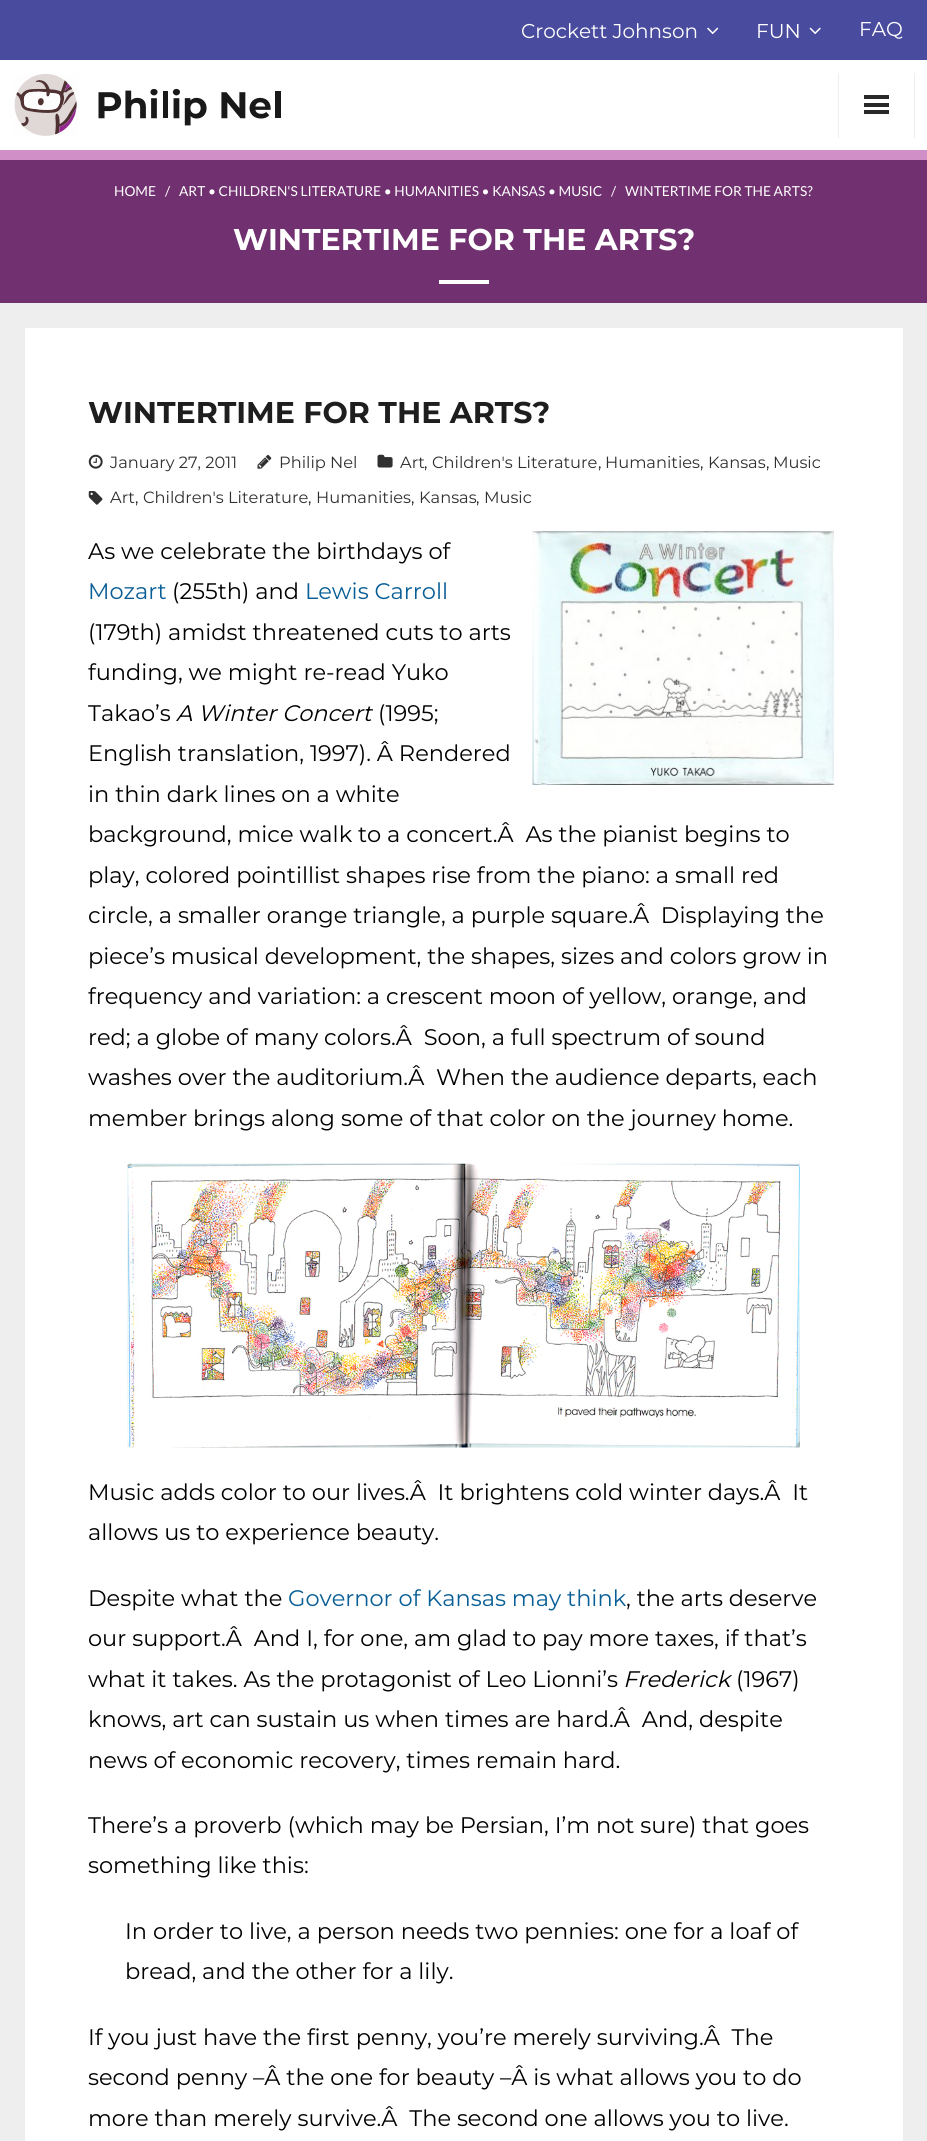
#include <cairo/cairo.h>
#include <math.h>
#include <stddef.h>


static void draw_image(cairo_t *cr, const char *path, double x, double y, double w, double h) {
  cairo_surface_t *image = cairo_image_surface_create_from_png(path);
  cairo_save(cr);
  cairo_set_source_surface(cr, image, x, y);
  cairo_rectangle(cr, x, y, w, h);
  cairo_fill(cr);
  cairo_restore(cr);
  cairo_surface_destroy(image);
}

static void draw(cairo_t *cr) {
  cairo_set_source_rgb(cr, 238 / 255.0, 238 / 255.0, 238 / 255.0);
  cairo_paint(cr);
  cairo_set_source_rgb(cr, 73 / 255.0, 75 / 255.0, 158 / 255.0);
  cairo_rectangle(cr, 0, 0, 927, 60);
  cairo_fill(cr);
  draw_image(cr, "images/1.png", 707, 27, 12, 8);
  draw_image(cr, "images/2.png", 809, 27, 12, 8);
  cairo_set_source_rgb(cr, 1, 1, 1);
  cairo_rectangle(cr, 0, 60, 927, 90);
  cairo_fill(cr);
  draw_image(cr, "images/3.png", 14, 74, 267, 62);
  cairo_set_source_rgb(cr, 238 / 255.0, 238 / 255.0, 238 / 255.0);
  cairo_rectangle(cr, 914, 73, 1, 65);
  cairo_fill(cr);
  cairo_rectangle(cr, 838, 73, 1, 65);
  cairo_fill(cr);
  cairo_set_source_rgb(cr, 41 / 255.0, 41 / 255.0, 41 / 255.0);
  cairo_rectangle(cr, 864, 95, 25, 4);
  cairo_fill(cr);
  cairo_rectangle(cr, 864, 103, 25, 4);
  cairo_fill(cr);
  cairo_rectangle(cr, 864, 110, 25, 4);
  cairo_fill(cr);
  cairo_set_source_rgb(cr, 113 / 255.0, 48 / 255.0, 112 / 255.0);
  cairo_rectangle(cr, 0, 160, 927, 143);
  cairo_fill(cr);
  cairo_set_source_rgb(cr, 208 / 255.0, 143 / 255.0, 199 / 255.0);
  cairo_rectangle(cr, 0, 150, 927, 10);
  cairo_fill(cr);
  cairo_set_source_rgb(cr, 1, 1, 1);
  cairo_rectangle(cr, 439, 280, 50, 4);
  cairo_fill(cr);
  cairo_rectangle(cr, 25, 328, 878, 1813);
  cairo_fill(cr);
  draw_image(cr, "images/4.png", 88, 454, 15, 15);
  draw_image(cr, "images/5.png", 257, 455, 15, 14);
  draw_image(cr, "images/6.png", 377, 454, 16, 14);
  draw_image(cr, "images/7.png", 88, 491, 15, 14);
  draw_image(cr, "images/8.png", 532, 531, 302, 254);
  draw_image(cr, "images/9.png", 127, 1163, 673, 285);
  cairo_select_font_face(cr, "Montserrat", CAIRO_FONT_SLANT_NORMAL, CAIRO_FONT_WEIGHT_NORMAL);
  cairo_set_font_size(cr, 20);
  cairo_move_to(cr, 521, 38);
  cairo_show_text(cr, "Crockett Johnson");
  cairo_move_to(cr, 756, 38);
  cairo_show_text(cr, "FUN");
  cairo_move_to(cr, 859, 36);
  cairo_show_text(cr, "FAQ");
  cairo_select_font_face(cr, "Lato", CAIRO_FONT_SLANT_NORMAL, CAIRO_FONT_WEIGHT_NORMAL);
  cairo_set_font_size(cr, 13.75);
  cairo_move_to(cr, 114, 196);
  cairo_show_text(cr, "HOME");
  cairo_move_to(cr, 165, 196);
  cairo_show_text(cr, "/");
  cairo_move_to(cr, 179, 196);
  cairo_show_text(cr, "ART • CHILDREN'S LITERATURE • HUMANITIES • KANSAS • MUSIC");
  cairo_move_to(cr, 611, 196);
  cairo_show_text(cr, "/");
  cairo_move_to(cr, 625, 196);
  cairo_show_text(cr, "WINTERTIME FOR THE ARTS?");
  cairo_select_font_face(cr, "Montserrat", CAIRO_FONT_SLANT_NORMAL, CAIRO_FONT_WEIGHT_BOLD);
  cairo_set_font_size(cr, 30);
  cairo_move_to(cr, 233, 250);
  cairo_show_text(cr, "WINTERTIME FOR THE ARTS?");
  cairo_set_source_rgb(cr, 30 / 255.0, 30 / 255.0, 30 / 255.0);
  cairo_move_to(cr, 88, 423);
  cairo_show_text(cr, "WINTERTIME FOR THE ARTS?");
  cairo_select_font_face(cr, "Montserrat", CAIRO_FONT_SLANT_NORMAL, CAIRO_FONT_WEIGHT_NORMAL);
  cairo_set_font_size(cr, 16.25);
  cairo_set_source_rgb(cr, 48 / 255.0, 48 / 255.0, 48 / 255.0);
  cairo_move_to(cr, 110, 468);
  cairo_show_text(cr, "January 27, 2011");
  cairo_move_to(cr, 279, 468);
  cairo_show_text(cr, "Philip Nel");
  cairo_move_to(cr, 400, 468);
  cairo_show_text(cr, "Art");
  cairo_set_source_rgb(cr, 30 / 255.0, 30 / 255.0, 30 / 255.0);
  cairo_move_to(cr, 424, 468);
  cairo_show_text(cr, ",");
  cairo_set_source_rgb(cr, 48 / 255.0, 48 / 255.0, 48 / 255.0);
  cairo_move_to(cr, 432, 468);
  cairo_show_text(cr, "Children's Literature");
  cairo_set_source_rgb(cr, 30 / 255.0, 30 / 255.0, 30 / 255.0);
  cairo_move_to(cr, 598, 468);
  cairo_show_text(cr, ",");
  cairo_set_source_rgb(cr, 48 / 255.0, 48 / 255.0, 48 / 255.0);
  cairo_move_to(cr, 605, 468);
  cairo_show_text(cr, "Humanities");
  cairo_set_source_rgb(cr, 30 / 255.0, 30 / 255.0, 30 / 255.0);
  cairo_move_to(cr, 700, 468);
  cairo_show_text(cr, ",");
  cairo_set_source_rgb(cr, 48 / 255.0, 48 / 255.0, 48 / 255.0);
  cairo_move_to(cr, 708, 468);
  cairo_show_text(cr, "Kansas");
  cairo_set_source_rgb(cr, 30 / 255.0, 30 / 255.0, 30 / 255.0);
  cairo_move_to(cr, 766, 468);
  cairo_show_text(cr, ",");
  cairo_set_source_rgb(cr, 48 / 255.0, 48 / 255.0, 48 / 255.0);
  cairo_move_to(cr, 773, 468);
  cairo_show_text(cr, "Music");
  cairo_move_to(cr, 110, 503);
  cairo_show_text(cr, "Art");
  cairo_set_source_rgb(cr, 30 / 255.0, 30 / 255.0, 30 / 255.0);
  cairo_move_to(cr, 135, 503);
  cairo_show_text(cr, ",");
  cairo_set_source_rgb(cr, 48 / 255.0, 48 / 255.0, 48 / 255.0);
  cairo_move_to(cr, 143, 503);
  cairo_show_text(cr, "Children's Literature");
  cairo_set_source_rgb(cr, 30 / 255.0, 30 / 255.0, 30 / 255.0);
  cairo_move_to(cr, 308, 503);
  cairo_show_text(cr, ",");
  cairo_set_source_rgb(cr, 48 / 255.0, 48 / 255.0, 48 / 255.0);
  cairo_move_to(cr, 316, 503);
  cairo_show_text(cr, "Humanities");
  cairo_set_source_rgb(cr, 30 / 255.0, 30 / 255.0, 30 / 255.0);
  cairo_move_to(cr, 411, 503);
  cairo_show_text(cr, ",");
  cairo_set_source_rgb(cr, 48 / 255.0, 48 / 255.0, 48 / 255.0);
  cairo_move_to(cr, 419, 503);
  cairo_show_text(cr, "Kansas");
  cairo_set_source_rgb(cr, 30 / 255.0, 30 / 255.0, 30 / 255.0);
  cairo_move_to(cr, 476, 503);
  cairo_show_text(cr, ",");
  cairo_set_source_rgb(cr, 48 / 255.0, 48 / 255.0, 48 / 255.0);
  cairo_move_to(cr, 484, 503);
  cairo_show_text(cr, "Music");
  cairo_set_font_size(cr, 22.5);
  cairo_set_source_rgb(cr, 0, 0, 0);
  cairo_move_to(cr, 88, 559);
  cairo_show_text(cr, "As we celebrate the birthdays of");
  cairo_set_source_rgb(cr, 8 / 255.0, 94 / 255.0, 150 / 255.0);
  cairo_move_to(cr, 88, 599);
  cairo_show_text(cr, "Mozart");
  cairo_set_source_rgb(cr, 0, 0, 0);
  cairo_move_to(cr, 172, 599);
  cairo_show_text(cr, "(255th) and");
  cairo_set_source_rgb(cr, 8 / 255.0, 94 / 255.0, 150 / 255.0);
  cairo_move_to(cr, 305, 599);
  cairo_show_text(cr, "Lewis Carroll");
  cairo_set_source_rgb(cr, 0, 0, 0);
  cairo_move_to(cr, 88, 640);
  cairo_show_text(cr, "(179th) amidst threatened cuts to arts");
  cairo_move_to(cr, 88, 680);
  cairo_show_text(cr, "funding, we might re-read Yuko");
  cairo_move_to(cr, 88, 721);
  cairo_show_text(cr, "Takao’s");
  cairo_select_font_face(cr, "Montserrat", CAIRO_FONT_SLANT_ITALIC, CAIRO_FONT_WEIGHT_NORMAL);
  cairo_move_to(cr, 176, 721);
  cairo_show_text(cr, "A Winter Concert");
  cairo_select_font_face(cr, "Montserrat", CAIRO_FONT_SLANT_NORMAL, CAIRO_FONT_WEIGHT_NORMAL);
  cairo_move_to(cr, 378, 721);
  cairo_show_text(cr, "(1995;");
  cairo_move_to(cr, 88, 761);
  cairo_show_text(cr, "English translation, 1997). Â Rendered");
  cairo_move_to(cr, 88, 802);
  cairo_show_text(cr, "in thin dark lines on a white");
  cairo_move_to(cr, 88, 842);
  cairo_show_text(cr, "background, mice walk to a concert.Â  As the pianist begins to");
  cairo_move_to(cr, 88, 883);
  cairo_show_text(cr, "play, colored pointillist shapes rise from the piano: a small red");
  cairo_move_to(cr, 88, 923);
  cairo_show_text(cr, "circle, a smaller orange triangle, a purple square.Â  Displaying the");
  cairo_move_to(cr, 88, 964);
  cairo_show_text(cr, "piece’s musical development, the shapes, sizes and colors grow in");
  cairo_move_to(cr, 88, 1004);
  cairo_show_text(cr, "frequency and variation: a crescent moon of yellow, orange, and");
  cairo_move_to(cr, 88, 1045);
  cairo_show_text(cr, "red; a globe of many colors.Â  Soon, a full spectrum of sound");
  cairo_move_to(cr, 88, 1085);
  cairo_show_text(cr, "washes over the auditorium.Â  When the audience departs, each");
  cairo_move_to(cr, 88, 1126);
  cairo_show_text(cr, "member brings along some of that color on the journey home.");
  cairo_move_to(cr, 88, 1500);
  cairo_show_text(cr, "Music adds color to our lives.Â  It brightens cold winter days.Â  It");
  cairo_move_to(cr, 88, 1540);
  cairo_show_text(cr, "allows us to experience beauty.");
  cairo_move_to(cr, 88, 1606);
  cairo_show_text(cr, "Despite what the");
  cairo_set_source_rgb(cr, 8 / 255.0, 94 / 255.0, 150 / 255.0);
  cairo_move_to(cr, 288, 1606);
  cairo_show_text(cr, "Governor of Kansas may think");
  cairo_set_source_rgb(cr, 0, 0, 0);
  cairo_move_to(cr, 626, 1606);
  cairo_show_text(cr, ", the arts deserve");
  cairo_move_to(cr, 88, 1646);
  cairo_show_text(cr, "our support.Â  And I, for one, am glad to pay more taxes, if that’s");
  cairo_move_to(cr, 88, 1687);
  cairo_show_text(cr, "what it takes. As the protagonist of Leo Lionni’s");
  cairo_select_font_face(cr, "Montserrat", CAIRO_FONT_SLANT_ITALIC, CAIRO_FONT_WEIGHT_NORMAL);
  cairo_move_to(cr, 623, 1687);
  cairo_show_text(cr, "Frederick");
  cairo_select_font_face(cr, "Montserrat", CAIRO_FONT_SLANT_NORMAL, CAIRO_FONT_WEIGHT_NORMAL);
  cairo_move_to(cr, 736, 1687);
  cairo_show_text(cr, "(1967)");
  cairo_move_to(cr, 88, 1727);
  cairo_show_text(cr, "knows, art can sustain us when times are hard.Â  And, despite");
  cairo_move_to(cr, 88, 1768);
  cairo_show_text(cr, "news of economic recovery, times remain hard.");
  cairo_move_to(cr, 88, 1833);
  cairo_show_text(cr, "There’s a proverb (which may be Persian, I’m not sure) that goes");
  cairo_move_to(cr, 88, 1873);
  cairo_show_text(cr, "something like this:");
  cairo_move_to(cr, 125, 1939);
  cairo_show_text(cr, "In order to live, a person needs two pennies: one for a loaf of");
  cairo_move_to(cr, 125, 1979);
  cairo_show_text(cr, "bread, and the other for a lily.");
  cairo_move_to(cr, 88, 2045);
  cairo_show_text(cr, "If you just have the first penny, you’re merely surviving.Â  The");
  cairo_move_to(cr, 88, 2085);
  cairo_show_text(cr, "second penny –Â the one for beauty –Â is what allows you to do");
  cairo_move_to(cr, 88, 2126);
  cairo_show_text(cr, "more than merely survive.Â  The second one allows you to live.");
}

int main(void) {
  cairo_surface_t *surface = cairo_image_surface_create(CAIRO_FORMAT_RGB24, 927, 2141);
  cairo_t *cr = cairo_create(surface);
  cairo_font_options_t *options = cairo_font_options_create();
  cairo_font_options_set_hint_metrics(options, CAIRO_HINT_METRICS_OFF);
  cairo_font_options_set_hint_style(options, CAIRO_HINT_STYLE_NONE);
  cairo_set_font_options(cr, options);
  cairo_set_miter_limit(cr, 4);
  draw(cr);
  cairo_surface_write_to_png(surface, "out.png");
  cairo_font_options_destroy(options);
  cairo_destroy(cr);
  cairo_surface_destroy(surface);
  return 0;
}
